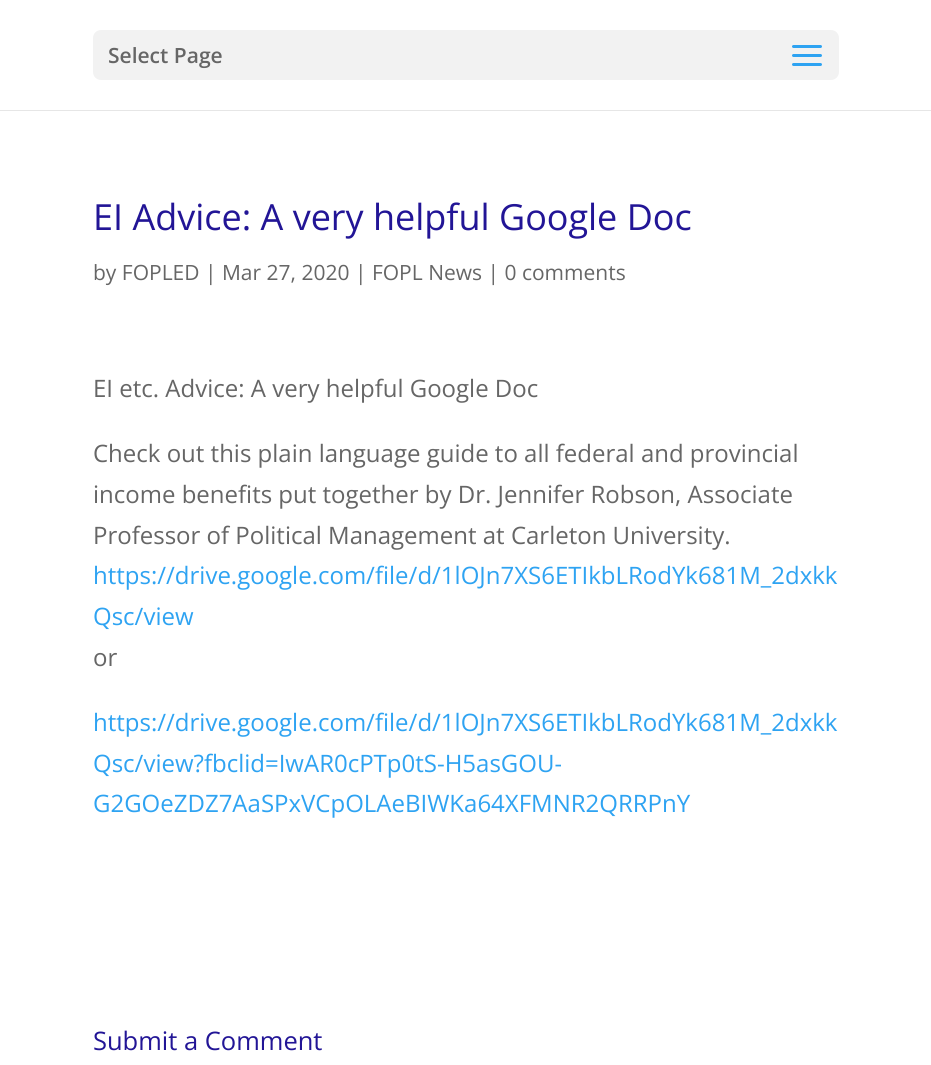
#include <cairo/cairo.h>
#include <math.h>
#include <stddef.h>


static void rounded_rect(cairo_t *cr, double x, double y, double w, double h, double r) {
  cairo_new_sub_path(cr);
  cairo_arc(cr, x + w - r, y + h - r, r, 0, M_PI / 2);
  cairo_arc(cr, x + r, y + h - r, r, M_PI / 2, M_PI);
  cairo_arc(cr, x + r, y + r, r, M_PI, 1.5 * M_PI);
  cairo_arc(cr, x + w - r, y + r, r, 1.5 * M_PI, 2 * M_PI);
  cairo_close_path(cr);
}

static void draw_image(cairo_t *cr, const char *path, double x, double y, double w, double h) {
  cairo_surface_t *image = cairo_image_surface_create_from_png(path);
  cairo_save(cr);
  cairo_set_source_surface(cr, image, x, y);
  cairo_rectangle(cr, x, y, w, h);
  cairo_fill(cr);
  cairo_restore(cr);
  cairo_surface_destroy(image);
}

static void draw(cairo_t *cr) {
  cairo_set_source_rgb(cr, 1, 1, 1);
  cairo_paint(cr);
  cairo_set_source_rgb(cr, 230 / 255.0, 230 / 255.0, 230 / 255.0);
  cairo_new_path(cr);
  cairo_move_to(cr, 0, 110);
  cairo_line_to(cr, 0, 111);
  cairo_line_to(cr, 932, 111);
  cairo_line_to(cr, 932, -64);
  cairo_line_to(cr, 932, 110);
  cairo_close_path(cr);
  cairo_fill(cr);
  cairo_set_source_rgb(cr, 242 / 255.0, 242 / 255.0, 242 / 255.0);
  rounded_rect(cr, 93, 30, 746, 50, 8);
  cairo_fill(cr);
  draw_image(cr, "images/1.png", 792, 45, 30, 21);
  cairo_select_font_face(cr, "Open Sans SemiBold", CAIRO_FONT_SLANT_NORMAL, CAIRO_FONT_WEIGHT_NORMAL);
  cairo_set_font_size(cr, 21);
  cairo_set_source_rgb(cr, 102 / 255.0, 102 / 255.0, 102 / 255.0);
  cairo_move_to(cr, 108, 63);
  cairo_show_text(cr, "Select Page");
  cairo_select_font_face(cr, "Open Sans", CAIRO_FONT_SLANT_NORMAL, CAIRO_FONT_WEIGHT_NORMAL);
  cairo_set_font_size(cr, 36);
  cairo_set_source_rgb(cr, 34 / 255.0, 21 / 255.0, 150 / 255.0);
  cairo_move_to(cr, 93, 230);
  cairo_show_text(cr, "EI Advice: A very helpful Google Doc");
  cairo_set_font_size(cr, 21);
  cairo_set_source_rgb(cr, 102 / 255.0, 102 / 255.0, 102 / 255.0);
  cairo_move_to(cr, 93, 280);
  cairo_show_text(cr, "by FOPLED | Mar 27, 2020 | FOPL News | 0 comments");
  cairo_set_font_size(cr, 24);
  cairo_move_to(cr, 93, 397);
  cairo_show_text(cr, "EI etc. Advice: A very helpful Google Doc");
  cairo_move_to(cr, 93, 462);
  cairo_show_text(cr, "Check out this plain language guide to all federal and provincial");
  cairo_move_to(cr, 93, 503);
  cairo_show_text(cr, "income benefits put together by Dr. Jennifer Robson, Associate");
  cairo_move_to(cr, 93, 544);
  cairo_show_text(cr, "Professor of Political Management at Carleton University.");
  cairo_set_source_rgb(cr, 46 / 255.0, 163 / 255.0, 242 / 255.0);
  cairo_move_to(cr, 93, 584);
  cairo_show_text(cr, "https://drive.google.com/file/d/1lOJn7XS6ETIkbLRodYk681M_2dxkk");
  cairo_move_to(cr, 93, 625);
  cairo_show_text(cr, "Qsc/view");
  cairo_set_source_rgb(cr, 102 / 255.0, 102 / 255.0, 102 / 255.0);
  cairo_move_to(cr, 93, 666);
  cairo_show_text(cr, "or");
  cairo_set_source_rgb(cr, 46 / 255.0, 163 / 255.0, 242 / 255.0);
  cairo_move_to(cr, 93, 731);
  cairo_show_text(cr, "https://drive.google.com/file/d/1lOJn7XS6ETIkbLRodYk681M_2dxkk");
  cairo_move_to(cr, 93, 772);
  cairo_show_text(cr, "Qsc/view?fbclid=IwAR0cPTp0tS-H5asGOU-");
  cairo_move_to(cr, 93, 812);
  cairo_show_text(cr, "G2GOeZDZ7AaSPxVCpOLAeBIWKa64XFMNR2QRRPnY");
  cairo_set_font_size(cr, 25.5);
  cairo_set_source_rgb(cr, 34 / 255.0, 21 / 255.0, 150 / 255.0);
  cairo_move_to(cr, 93, 1050);
  cairo_show_text(cr, "Submit a Comment");
}

int main(void) {
  cairo_surface_t *surface = cairo_image_surface_create(CAIRO_FORMAT_RGB24, 931, 1065);
  cairo_t *cr = cairo_create(surface);
  cairo_font_options_t *options = cairo_font_options_create();
  cairo_font_options_set_hint_metrics(options, CAIRO_HINT_METRICS_OFF);
  cairo_font_options_set_hint_style(options, CAIRO_HINT_STYLE_NONE);
  cairo_set_font_options(cr, options);
  cairo_set_miter_limit(cr, 4);
  draw(cr);
  cairo_surface_write_to_png(surface, "out.png");
  cairo_font_options_destroy(options);
  cairo_destroy(cr);
  cairo_surface_destroy(surface);
  return 0;
}
